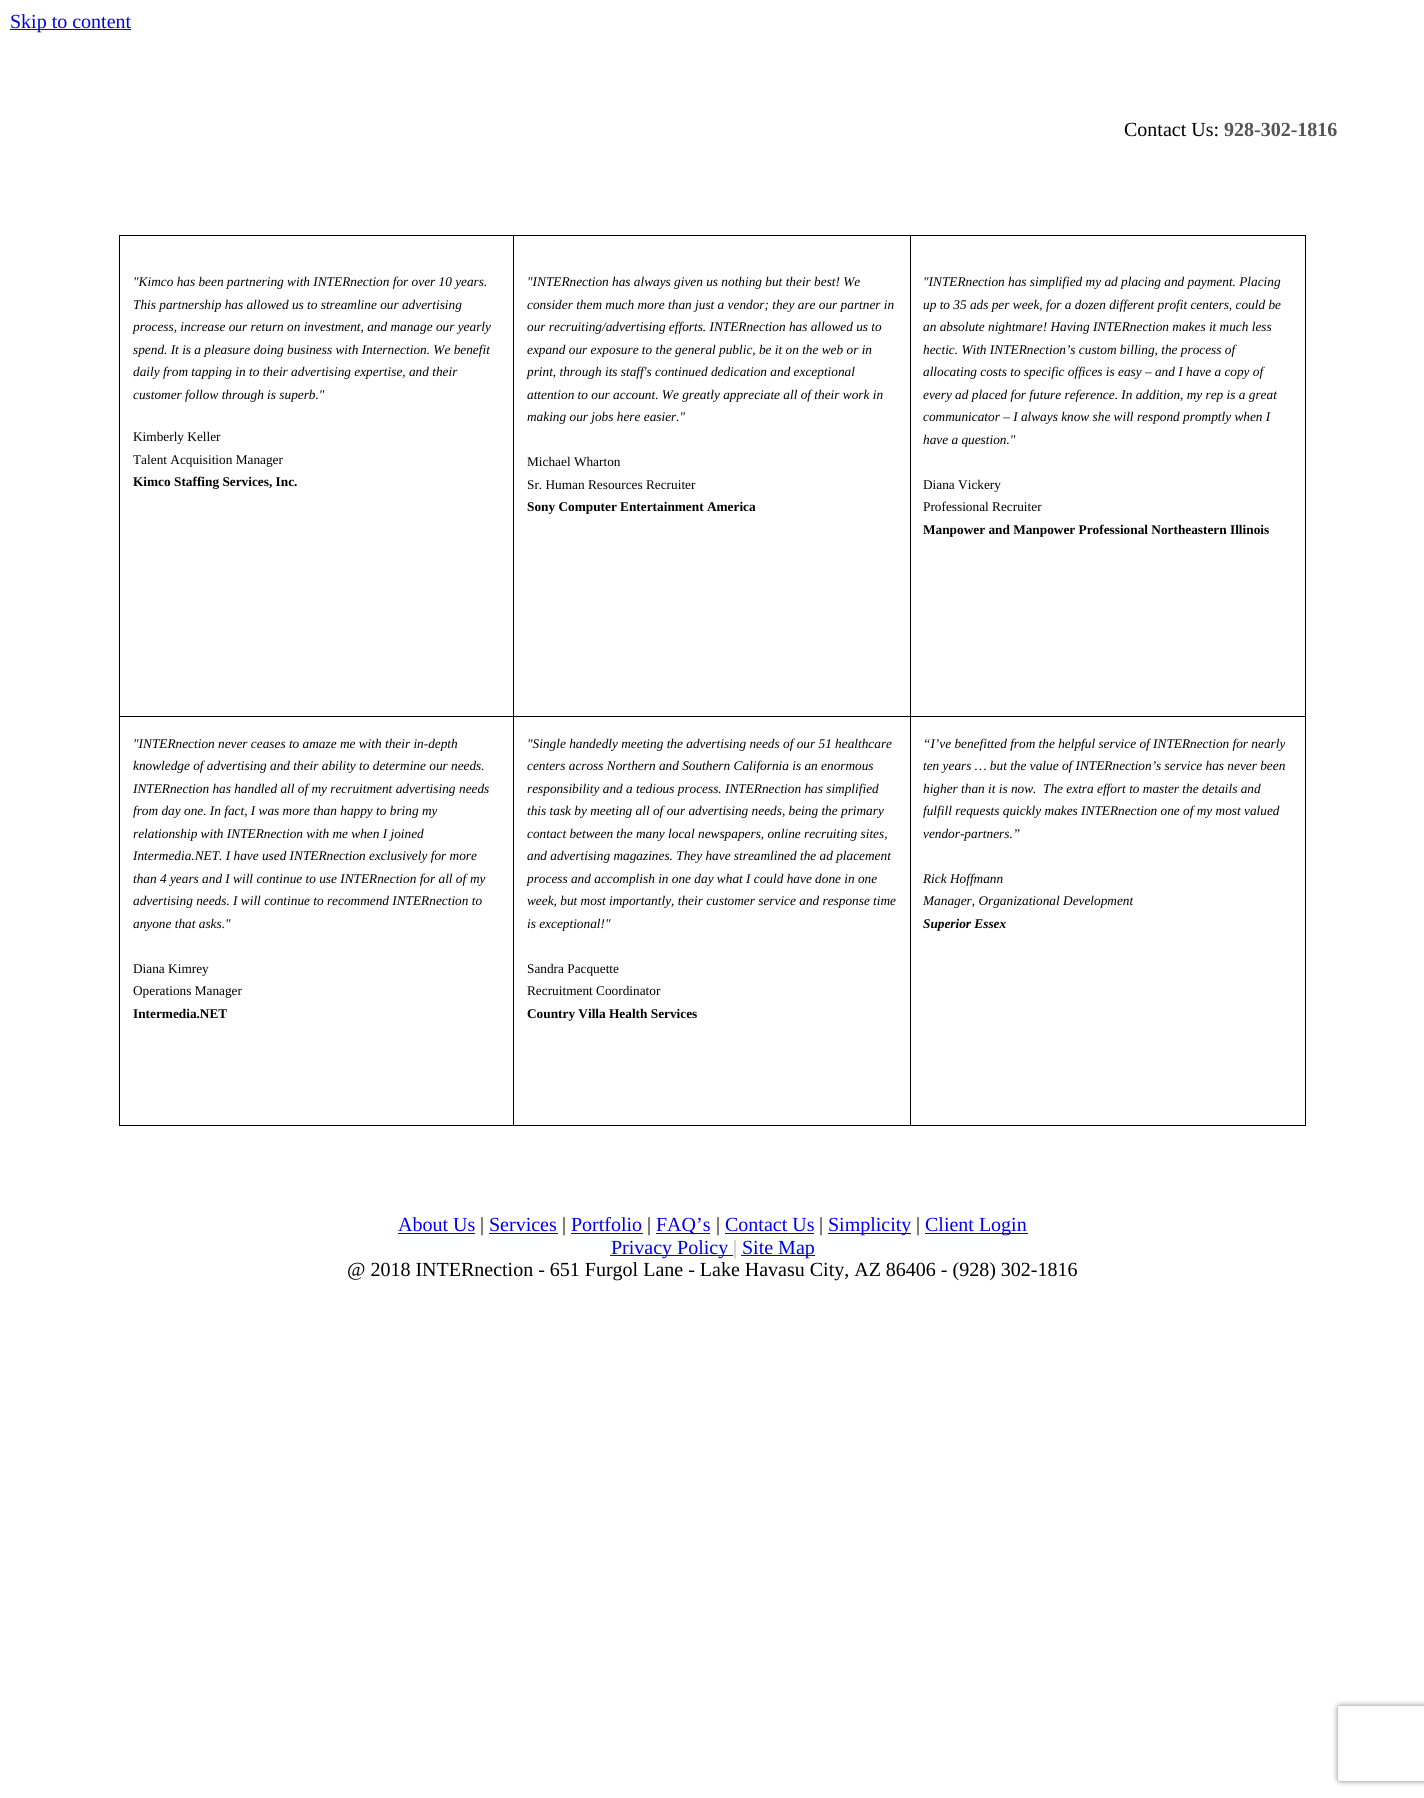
#include <cairo/cairo.h>
#include <math.h>
#include <stddef.h>


static void rounded_rect(cairo_t *cr, double x, double y, double w, double h, double r) {
  cairo_new_sub_path(cr);
  cairo_arc(cr, x + w - r, y + h - r, r, 0, M_PI / 2);
  cairo_arc(cr, x + r, y + h - r, r, M_PI / 2, M_PI);
  cairo_arc(cr, x + r, y + r, r, M_PI, 1.5 * M_PI);
  cairo_arc(cr, x + w - r, y + r, r, 1.5 * M_PI, 2 * M_PI);
  cairo_close_path(cr);
}

static void draw_shadow(cairo_t *cr, double x, double y, double w, double h, double r, double blur, double alpha) {
  cairo_push_group_with_content(cr, CAIRO_CONTENT_ALPHA);
  cairo_set_operator(cr, CAIRO_OPERATOR_SOURCE);
  for (int i = 15; i >= -15 && fmin(w, h) + blur * i / 3 > 0; i -= 2) {
    double e = blur * i / 6;
    cairo_set_source_rgba(cr, 0, 0, 0, alpha * erfc((i - 1) / 8.5) / 2);
    rounded_rect(cr, x - e, y - e, w + 2 * e, h + 2 * e, fmax(0, fmin(r + e + blur * .6, fmin(w, h) / 2 + e)));
    cairo_fill(cr);
  }
  cairo_pattern_t *soft = cairo_pop_group(cr);
  cairo_mask(cr, soft);
  cairo_pattern_destroy(soft);
}

static void draw(cairo_t *cr) {
  cairo_set_source_rgb(cr, 1, 1, 1);
  cairo_paint(cr);
  cairo_set_source_rgb(cr, 0, 0, 238 / 255.0);
  cairo_rectangle(cr, 10, 29, 121, 1);
  cairo_fill(cr);
  cairo_set_source_rgb(cr, 0, 0, 0);
  cairo_rectangle(cr, 910, 235, 396, 1);
  cairo_fill(cr);
  cairo_rectangle(cr, 910, 716, 396, 1);
  cairo_fill(cr);
  cairo_rectangle(cr, 1305, 716, 1, 410);
  cairo_fill(cr);
  cairo_rectangle(cr, 910, 1125, 396, 1);
  cairo_fill(cr);
  cairo_rectangle(cr, 910, 716, 1, 410);
  cairo_fill(cr);
  cairo_rectangle(cr, 513, 716, 398, 1);
  cairo_fill(cr);
  cairo_rectangle(cr, 910, 235, 1, 483);
  cairo_fill(cr);
  cairo_rectangle(cr, 513, 235, 398, 1);
  cairo_fill(cr);
  cairo_rectangle(cr, 513, 1125, 398, 1);
  cairo_fill(cr);
  cairo_rectangle(cr, 513, 716, 1, 410);
  cairo_fill(cr);
  cairo_rectangle(cr, 119, 716, 395, 1);
  cairo_fill(cr);
  cairo_rectangle(cr, 513, 235, 1, 483);
  cairo_fill(cr);
  cairo_rectangle(cr, 119, 235, 395, 1);
  cairo_fill(cr);
  cairo_rectangle(cr, 119, 1125, 395, 1);
  cairo_fill(cr);
  cairo_rectangle(cr, 119, 716, 1, 410);
  cairo_fill(cr);
  cairo_rectangle(cr, 119, 235, 1, 483);
  cairo_fill(cr);
  cairo_rectangle(cr, 1305, 235, 1, 483);
  cairo_fill(cr);
  cairo_set_source_rgb(cr, 0, 0, 238 / 255.0);
  cairo_rectangle(cr, 398, 1233, 77, 1);
  cairo_fill(cr);
  cairo_rectangle(cr, 489, 1233, 69, 1);
  cairo_fill(cr);
  cairo_rectangle(cr, 571, 1233, 72, 1);
  cairo_fill(cr);
  cairo_rectangle(cr, 656, 1233, 54, 1);
  cairo_fill(cr);
  cairo_rectangle(cr, 725, 1233, 89, 1);
  cairo_fill(cr);
  cairo_rectangle(cr, 828, 1233, 83, 1);
  cairo_fill(cr);
  cairo_rectangle(cr, 925, 1233, 103, 1);
  cairo_fill(cr);
  cairo_rectangle(cr, 610, 1255, 123, 1);
  cairo_fill(cr);
  cairo_rectangle(cr, 741, 1255, 74, 1);
  cairo_fill(cr);
  cairo_save(cr);
  cairo_set_fill_rule(cr, CAIRO_FILL_RULE_EVEN_ODD);
  cairo_new_path(cr);
  cairo_move_to(cr, 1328, 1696);
  cairo_line_to(cr, 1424, 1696);
  cairo_line_to(cr, 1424, 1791);
  cairo_line_to(cr, 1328, 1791);
  cairo_close_path(cr);
  cairo_move_to(cr, 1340.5, 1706);
  cairo_line_to(cr, 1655.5, 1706);
  cairo_curve_to(cr, 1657, 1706, 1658, 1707, 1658, 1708.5);
  cairo_line_to(cr, 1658, 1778.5);
  cairo_curve_to(cr, 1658, 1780, 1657, 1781, 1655.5, 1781);
  cairo_line_to(cr, 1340.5, 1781);
  cairo_curve_to(cr, 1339, 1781, 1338, 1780, 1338, 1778.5);
  cairo_line_to(cr, 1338, 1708.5);
  cairo_curve_to(cr, 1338, 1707, 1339, 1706, 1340.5, 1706);
  cairo_close_path(cr);
  cairo_clip(cr);
  cairo_set_source_rgb(cr, 128 / 255.0, 128 / 255.0, 128 / 255.0);
  draw_shadow(cr, 1338, 1706, 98, 75, 2.5, 3, 1);
  cairo_restore(cr);
  cairo_select_font_face(cr, "Liberation Serif", CAIRO_FONT_SLANT_NORMAL, CAIRO_FONT_WEIGHT_NORMAL);
  cairo_set_font_size(cr, 20);
  cairo_move_to(cr, 10, 28);
  cairo_show_text(cr, "Skip to content");
  cairo_set_source_rgb(cr, 0, 0, 0);
  cairo_move_to(cr, 1124, 136);
  cairo_show_text(cr, "Contact Us:");
  cairo_select_font_face(cr, "Liberation Serif", CAIRO_FONT_SLANT_NORMAL, CAIRO_FONT_WEIGHT_BOLD);
  cairo_set_source_rgb(cr, 84 / 255.0, 84 / 255.0, 84 / 255.0);
  cairo_move_to(cr, 1224, 136);
  cairo_show_text(cr, "928-302-1816");
  cairo_select_font_face(cr, "Liberation Serif", CAIRO_FONT_SLANT_ITALIC, CAIRO_FONT_WEIGHT_NORMAL);
  cairo_set_font_size(cr, 13.3);
  cairo_set_source_rgb(cr, 0, 0, 0);
  cairo_move_to(cr, 133, 286);
  cairo_show_text(cr, "\"Kimco has been partnering with INTERnection for over 10 years.");
  cairo_move_to(cr, 133, 309);
  cairo_show_text(cr, "This partnership has allowed us to streamline our advertising");
  cairo_move_to(cr, 133, 331);
  cairo_show_text(cr, "process, increase our return on investment, and manage our yearly");
  cairo_move_to(cr, 133, 354);
  cairo_show_text(cr, "spend. It is a pleasure doing business with Internection. We benefit");
  cairo_move_to(cr, 133, 376);
  cairo_show_text(cr, "daily from tapping in to their advertising expertise, and their");
  cairo_move_to(cr, 133, 399);
  cairo_show_text(cr, "customer follow through is superb.\"");
  cairo_select_font_face(cr, "Liberation Serif", CAIRO_FONT_SLANT_NORMAL, CAIRO_FONT_WEIGHT_NORMAL);
  cairo_move_to(cr, 133, 441);
  cairo_show_text(cr, "Kimberly Keller");
  cairo_move_to(cr, 133, 464);
  cairo_show_text(cr, "Talent Acquisition Manager");
  cairo_select_font_face(cr, "Liberation Serif", CAIRO_FONT_SLANT_NORMAL, CAIRO_FONT_WEIGHT_BOLD);
  cairo_move_to(cr, 133, 486);
  cairo_show_text(cr, "Kimco Staffing Services, Inc.");
  cairo_select_font_face(cr, "Liberation Serif", CAIRO_FONT_SLANT_ITALIC, CAIRO_FONT_WEIGHT_NORMAL);
  cairo_move_to(cr, 527, 286);
  cairo_show_text(cr, "\"INTERnection has always given us nothing but their best! We");
  cairo_move_to(cr, 527, 309);
  cairo_show_text(cr, "consider them much more than just a vendor; they are our partner in");
  cairo_move_to(cr, 527, 331);
  cairo_show_text(cr, "our recruiting/advertising efforts. INTERnection has allowed us to");
  cairo_move_to(cr, 527, 354);
  cairo_show_text(cr, "expand our exposure to the general public, be it on the web or in");
  cairo_move_to(cr, 527, 376);
  cairo_show_text(cr, "print, through its staff's continued dedication and exceptional");
  cairo_move_to(cr, 527, 399);
  cairo_show_text(cr, "attention to our account. We greatly appreciate all of their work in");
  cairo_move_to(cr, 527, 421);
  cairo_show_text(cr, "making our jobs here easier.\"");
  cairo_select_font_face(cr, "Liberation Serif", CAIRO_FONT_SLANT_NORMAL, CAIRO_FONT_WEIGHT_NORMAL);
  cairo_move_to(cr, 527, 466);
  cairo_show_text(cr, "Michael Wharton");
  cairo_move_to(cr, 527, 489);
  cairo_show_text(cr, "Sr. Human Resources Recruiter");
  cairo_select_font_face(cr, "Liberation Serif", CAIRO_FONT_SLANT_NORMAL, CAIRO_FONT_WEIGHT_BOLD);
  cairo_move_to(cr, 527, 511);
  cairo_show_text(cr, "Sony Computer Entertainment America");
  cairo_select_font_face(cr, "Liberation Serif", CAIRO_FONT_SLANT_ITALIC, CAIRO_FONT_WEIGHT_NORMAL);
  cairo_move_to(cr, 923, 286);
  cairo_show_text(cr, "\"INTERnection has simplified my ad placing and payment. Placing");
  cairo_move_to(cr, 923, 309);
  cairo_show_text(cr, "up to 35 ads per week, for a dozen different profit centers, could be");
  cairo_move_to(cr, 923, 331);
  cairo_show_text(cr, "an absolute nightmare! Having INTERnection makes it much less");
  cairo_move_to(cr, 923, 354);
  cairo_show_text(cr, "hectic. With INTERnection’s custom billing, the process of");
  cairo_move_to(cr, 923, 376);
  cairo_show_text(cr, "allocating costs to specific offices is easy – and I have a copy of");
  cairo_move_to(cr, 923, 399);
  cairo_show_text(cr, "every ad placed for future reference. In addition, my rep is a great");
  cairo_move_to(cr, 923, 421);
  cairo_show_text(cr, "communicator – I always know she will respond promptly when I");
  cairo_move_to(cr, 923, 444);
  cairo_show_text(cr, "have a question.\"");
  cairo_select_font_face(cr, "Liberation Serif", CAIRO_FONT_SLANT_NORMAL, CAIRO_FONT_WEIGHT_NORMAL);
  cairo_move_to(cr, 923, 489);
  cairo_show_text(cr, "Diana Vickery");
  cairo_move_to(cr, 923, 511);
  cairo_show_text(cr, "Professional Recruiter");
  cairo_select_font_face(cr, "Liberation Serif", CAIRO_FONT_SLANT_NORMAL, CAIRO_FONT_WEIGHT_BOLD);
  cairo_move_to(cr, 923, 534);
  cairo_show_text(cr, "Manpower and Manpower Professional Northeastern Illinois");
  cairo_select_font_face(cr, "Liberation Serif", CAIRO_FONT_SLANT_ITALIC, CAIRO_FONT_WEIGHT_NORMAL);
  cairo_move_to(cr, 133, 748);
  cairo_show_text(cr, "\"INTERnection never ceases to amaze me with their in-depth");
  cairo_move_to(cr, 133, 770);
  cairo_show_text(cr, "knowledge of advertising and their ability to determine our");
  cairo_move_to(cr, 451, 770);
  cairo_show_text(cr, "needs.");
  cairo_move_to(cr, 133, 793);
  cairo_show_text(cr, "INTERnection has handled all of my recruitment advertising");
  cairo_move_to(cr, 459, 793);
  cairo_show_text(cr, "needs");
  cairo_move_to(cr, 133, 815);
  cairo_show_text(cr, "from day one. In fact, I was more than happy to bring my");
  cairo_move_to(cr, 133, 838);
  cairo_show_text(cr, "relationship with INTERnection with me when I joined");
  cairo_move_to(cr, 133, 860);
  cairo_show_text(cr, "Intermedia.NET. I have used INTERnection exclusively for more");
  cairo_move_to(cr, 133, 883);
  cairo_show_text(cr, "than 4 years and I will continue to use INTERnection for all of");
  cairo_move_to(cr, 470, 883);
  cairo_show_text(cr, "my");
  cairo_move_to(cr, 133, 905);
  cairo_show_text(cr, "advertising needs. I will continue to recommend INTERnection to");
  cairo_move_to(cr, 133, 928);
  cairo_show_text(cr, "anyone that asks.\"");
  cairo_select_font_face(cr, "Liberation Serif", CAIRO_FONT_SLANT_NORMAL, CAIRO_FONT_WEIGHT_NORMAL);
  cairo_move_to(cr, 133, 973);
  cairo_show_text(cr, "Diana Kimrey");
  cairo_move_to(cr, 133, 995);
  cairo_show_text(cr, "Operations Manager");
  cairo_select_font_face(cr, "Liberation Serif", CAIRO_FONT_SLANT_NORMAL, CAIRO_FONT_WEIGHT_BOLD);
  cairo_move_to(cr, 133, 1018);
  cairo_show_text(cr, "Intermedia.NET");
  cairo_select_font_face(cr, "Liberation Serif", CAIRO_FONT_SLANT_ITALIC, CAIRO_FONT_WEIGHT_NORMAL);
  cairo_move_to(cr, 527, 748);
  cairo_show_text(cr, "\"Single handedly meeting the advertising needs of our 51 healthcare");
  cairo_move_to(cr, 527, 770);
  cairo_show_text(cr, "centers across Northern and Southern California is an enormous");
  cairo_move_to(cr, 527, 793);
  cairo_show_text(cr, "responsibility and a tedious process. INTERnection has simplified");
  cairo_move_to(cr, 527, 815);
  cairo_show_text(cr, "this task by meeting all of our advertising needs, being the primary");
  cairo_move_to(cr, 527, 838);
  cairo_show_text(cr, "contact between the many local newspapers, online recruiting sites,");
  cairo_move_to(cr, 527, 860);
  cairo_show_text(cr, "and advertising magazines. They have streamlined the ad placement");
  cairo_move_to(cr, 527, 883);
  cairo_show_text(cr, "process and accomplish in one day what I could have done in one");
  cairo_move_to(cr, 527, 905);
  cairo_show_text(cr, "week, but most importantly, their customer service and response time");
  cairo_move_to(cr, 527, 928);
  cairo_show_text(cr, "is exceptional!\"");
  cairo_select_font_face(cr, "Liberation Serif", CAIRO_FONT_SLANT_NORMAL, CAIRO_FONT_WEIGHT_NORMAL);
  cairo_move_to(cr, 527, 973);
  cairo_show_text(cr, "Sandra Pacquette");
  cairo_move_to(cr, 527, 995);
  cairo_show_text(cr, "Recruitment Coordinator");
  cairo_select_font_face(cr, "Liberation Serif", CAIRO_FONT_SLANT_NORMAL, CAIRO_FONT_WEIGHT_BOLD);
  cairo_move_to(cr, 527, 1018);
  cairo_show_text(cr, "Country Villa Health Services");
  cairo_select_font_face(cr, "Liberation Serif", CAIRO_FONT_SLANT_ITALIC, CAIRO_FONT_WEIGHT_NORMAL);
  cairo_move_to(cr, 923, 748);
  cairo_show_text(cr, "“I’ve benefitted from the helpful service of INTERnection for nearly");
  cairo_move_to(cr, 923, 770);
  cairo_show_text(cr, "ten years … but the value of INTERnection’s service has never been");
  cairo_move_to(cr, 923, 793);
  cairo_show_text(cr, "higher than it is now.  The extra effort to master the details and");
  cairo_move_to(cr, 923, 815);
  cairo_show_text(cr, "fulfill requests quickly makes INTERnection one of my most valued");
  cairo_move_to(cr, 923, 838);
  cairo_show_text(cr, "vendor-partners.”");
  cairo_move_to(cr, 923, 883);
  cairo_show_text(cr, "Rick Hoffmann");
  cairo_move_to(cr, 923, 905);
  cairo_show_text(cr, "Manager, Organizational Development");
  cairo_select_font_face(cr, "Liberation Serif", CAIRO_FONT_SLANT_ITALIC, CAIRO_FONT_WEIGHT_BOLD);
  cairo_move_to(cr, 923, 928);
  cairo_show_text(cr, "Superior Essex");
  cairo_select_font_face(cr, "Liberation Serif", CAIRO_FONT_SLANT_NORMAL, CAIRO_FONT_WEIGHT_NORMAL);
  cairo_set_font_size(cr, 20);
  cairo_set_source_rgb(cr, 0, 0, 238 / 255.0);
  cairo_move_to(cr, 398, 1231);
  cairo_show_text(cr, "About Us");
  cairo_set_source_rgb(cr, 0, 0, 0);
  cairo_move_to(cr, 480, 1231);
  cairo_show_text(cr, "|");
  cairo_set_source_rgb(cr, 0, 0, 238 / 255.0);
  cairo_move_to(cr, 489, 1231);
  cairo_show_text(cr, "Services");
  cairo_set_source_rgb(cr, 0, 0, 0);
  cairo_move_to(cr, 562, 1231);
  cairo_show_text(cr, "|");
  cairo_set_source_rgb(cr, 0, 0, 238 / 255.0);
  cairo_move_to(cr, 571, 1231);
  cairo_show_text(cr, "Portfolio");
  cairo_set_source_rgb(cr, 0, 0, 0);
  cairo_move_to(cr, 647, 1231);
  cairo_show_text(cr, "|");
  cairo_set_source_rgb(cr, 0, 0, 238 / 255.0);
  cairo_move_to(cr, 656, 1231);
  cairo_show_text(cr, "FAQ’s");
  cairo_set_source_rgb(cr, 0, 0, 0);
  cairo_move_to(cr, 716, 1231);
  cairo_show_text(cr, "|");
  cairo_set_source_rgb(cr, 0, 0, 238 / 255.0);
  cairo_move_to(cr, 725, 1231);
  cairo_show_text(cr, "Contact Us");
  cairo_set_source_rgb(cr, 0, 0, 0);
  cairo_move_to(cr, 819, 1231);
  cairo_show_text(cr, "|");
  cairo_set_source_rgb(cr, 0, 0, 238 / 255.0);
  cairo_move_to(cr, 828, 1231);
  cairo_show_text(cr, "Simplicity");
  cairo_set_source_rgb(cr, 0, 0, 0);
  cairo_move_to(cr, 916, 1231);
  cairo_show_text(cr, "|");
  cairo_set_source_rgb(cr, 0, 0, 238 / 255.0);
  cairo_move_to(cr, 925, 1231);
  cairo_show_text(cr, "Client Login");
  cairo_move_to(cr, 611, 1254);
  cairo_show_text(cr, "Privacy Policy");
  cairo_set_source_rgb(cr, 169 / 255.0, 169 / 255.0, 169 / 255.0);
  cairo_move_to(cr, 733, 1254);
  cairo_show_text(cr, "|");
  cairo_set_source_rgb(cr, 0, 0, 238 / 255.0);
  cairo_move_to(cr, 742, 1254);
  cairo_show_text(cr, "Site Map");
  cairo_set_source_rgb(cr, 0, 0, 0);
  cairo_move_to(cr, 347, 1276);
  cairo_show_text(cr, "@ 2018 INTERnection - 651 Furgol Lane - Lake Havasu City, AZ 86406 - (928) 302-1816");
}

int main(void) {
  cairo_surface_t *surface = cairo_image_surface_create(CAIRO_FORMAT_RGB24, 1424, 1798);
  cairo_t *cr = cairo_create(surface);
  cairo_font_options_t *options = cairo_font_options_create();
  cairo_font_options_set_hint_metrics(options, CAIRO_HINT_METRICS_OFF);
  cairo_font_options_set_hint_style(options, CAIRO_HINT_STYLE_NONE);
  cairo_set_font_options(cr, options);
  cairo_set_miter_limit(cr, 4);
  draw(cr);
  cairo_surface_write_to_png(surface, "out.png");
  cairo_font_options_destroy(options);
  cairo_destroy(cr);
  cairo_surface_destroy(surface);
  return 0;
}
